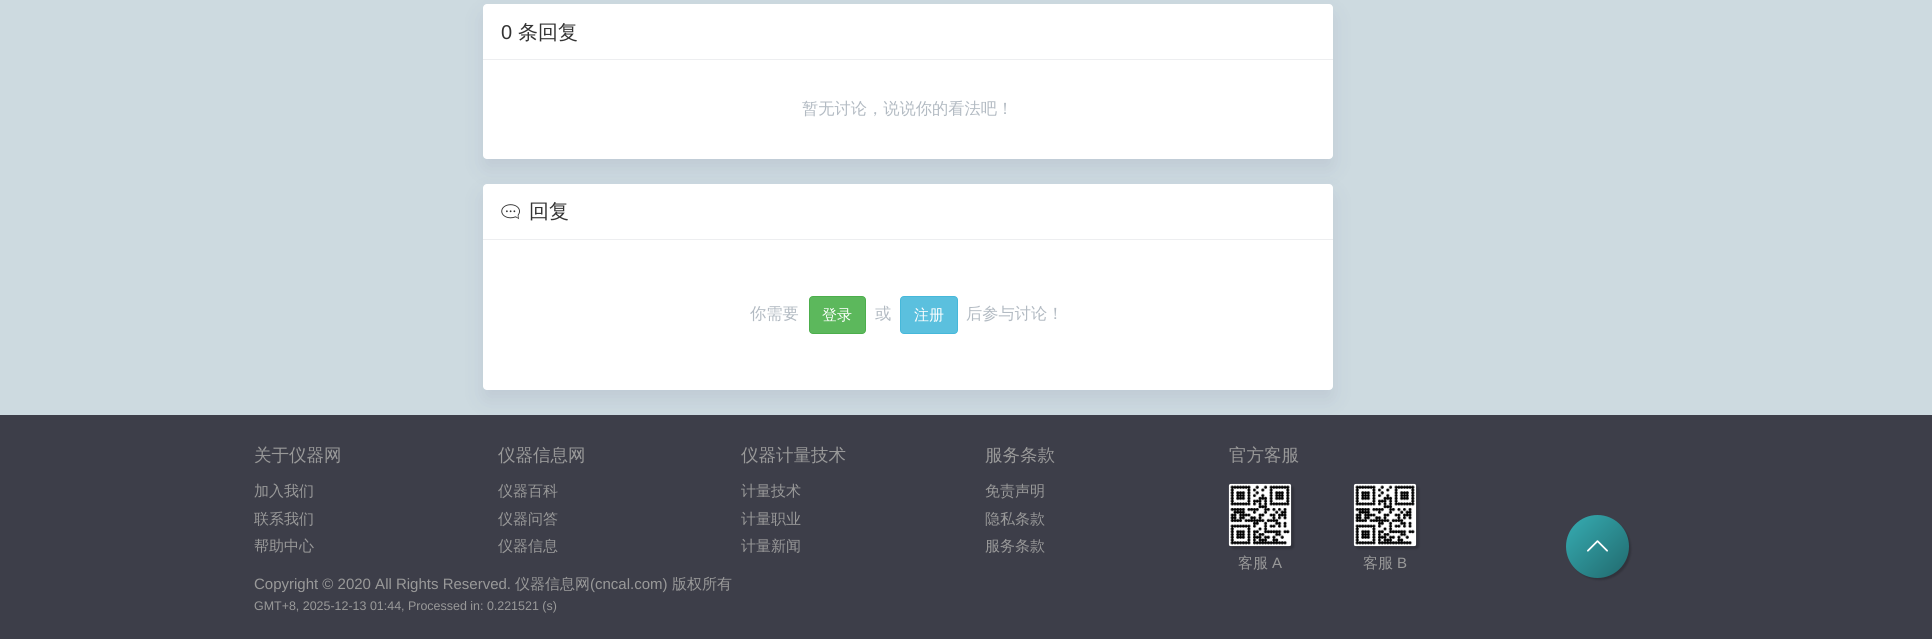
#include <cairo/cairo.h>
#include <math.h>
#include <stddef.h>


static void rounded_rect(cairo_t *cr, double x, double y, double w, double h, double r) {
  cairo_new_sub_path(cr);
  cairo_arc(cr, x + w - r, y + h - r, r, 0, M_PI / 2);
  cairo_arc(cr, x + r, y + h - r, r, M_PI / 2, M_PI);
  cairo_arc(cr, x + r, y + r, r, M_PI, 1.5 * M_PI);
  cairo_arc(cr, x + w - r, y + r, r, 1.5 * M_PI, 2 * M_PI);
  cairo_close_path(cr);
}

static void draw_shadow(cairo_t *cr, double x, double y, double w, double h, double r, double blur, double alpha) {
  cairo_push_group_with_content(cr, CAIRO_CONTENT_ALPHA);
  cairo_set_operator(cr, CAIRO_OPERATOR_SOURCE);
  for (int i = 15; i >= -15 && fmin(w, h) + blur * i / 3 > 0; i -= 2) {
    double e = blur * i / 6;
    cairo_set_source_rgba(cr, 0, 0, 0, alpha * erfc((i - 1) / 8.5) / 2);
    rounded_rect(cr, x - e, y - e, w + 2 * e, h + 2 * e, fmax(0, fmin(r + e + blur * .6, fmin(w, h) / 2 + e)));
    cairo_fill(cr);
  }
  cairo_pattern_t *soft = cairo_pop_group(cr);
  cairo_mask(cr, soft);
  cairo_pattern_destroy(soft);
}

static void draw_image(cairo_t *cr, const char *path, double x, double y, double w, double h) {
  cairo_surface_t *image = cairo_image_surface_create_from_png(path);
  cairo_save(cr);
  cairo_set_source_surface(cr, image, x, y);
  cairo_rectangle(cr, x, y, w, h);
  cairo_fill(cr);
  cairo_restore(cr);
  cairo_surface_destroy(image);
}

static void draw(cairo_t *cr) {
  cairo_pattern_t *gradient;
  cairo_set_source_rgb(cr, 205 / 255.0, 218 / 255.0, 224 / 255.0);
  cairo_paint(cr);
  cairo_set_source_rgb(cr, 62 / 255.0, 57 / 255.0, 107 / 255.0);
  draw_shadow(cr, 483, 14, 850, 155, 4, 10, 0.1);
  cairo_set_source_rgb(cr, 1, 1, 1);
  rounded_rect(cr, 483, 4, 850, 155, 4);
  cairo_fill(cr);
  cairo_set_source_rgb(cr, 237 / 255.0, 238 / 255.0, 240 / 255.0);
  cairo_rectangle(cr, 483, 59, 850, 1);
  cairo_fill(cr);
  cairo_set_source_rgb(cr, 62 / 255.0, 57 / 255.0, 107 / 255.0);
  draw_shadow(cr, 483, 194, 850, 206, 4, 10, 0.1);
  cairo_set_source_rgb(cr, 1, 1, 1);
  rounded_rect(cr, 483, 184, 850, 206, 4);
  cairo_fill(cr);
  cairo_set_source_rgb(cr, 237 / 255.0, 238 / 255.0, 240 / 255.0);
  cairo_rectangle(cr, 483, 239, 850, 1);
  cairo_fill(cr);
  draw_image(cr, "images/1.png", 501, 204, 19, 16);
  cairo_set_source_rgb(cr, 92 / 255.0, 184 / 255.0, 92 / 255.0);
  rounded_rect(cr, 809.5, 296.5, 56, 37, 3.5);
  cairo_fill_preserve(cr);
  cairo_set_source_rgb(cr, 76 / 255.0, 174 / 255.0, 76 / 255.0);
  cairo_set_line_width(cr, 1);
  cairo_stroke(cr);
  cairo_set_source_rgb(cr, 91 / 255.0, 192 / 255.0, 222 / 255.0);
  rounded_rect(cr, 900.5, 296.5, 57, 37, 3.5);
  cairo_fill_preserve(cr);
  cairo_set_source_rgb(cr, 70 / 255.0, 184 / 255.0, 218 / 255.0);
  cairo_stroke(cr);
  cairo_set_source_rgb(cr, 61 / 255.0, 62 / 255.0, 73 / 255.0);
  cairo_rectangle(cr, 0, 415, 1932, 224);
  cairo_fill(cr);
  cairo_set_source_rgb(cr, 0, 0, 0);
  draw_shadow(cr, 1231, 486, 63, 63, 2.5, 1, 0.2);
  draw_image(cr, "images/2.png", 1228, 483, 64, 64);
  draw_shadow(cr, 1356, 486, 63, 63, 2.5, 1, 0.2);
  draw_image(cr, "images/3.png", 1353, 483, 64, 64);
  draw_shadow(cr, 1569, 518, 62, 62, 31, 1, 0.2);
  gradient = cairo_pattern_create_linear(1566, 515, 1629, 578);
  cairo_pattern_add_color_stop_rgba(gradient, 0, 54 / 255.0, 173 / 255.0, 179 / 255.0, 1);
  cairo_pattern_add_color_stop_rgba(gradient, 1, 33 / 255.0, 105 / 255.0, 109 / 255.0, 1);
  cairo_set_source(cr, gradient);
  cairo_pattern_destroy(gradient);
  cairo_arc(cr, 1597.5, 546.5, 31.5, 0, 2 * M_PI);
  cairo_fill(cr);
  draw_image(cr, "images/4.png", 1587, 540, 21, 12);
  cairo_select_font_face(cr, "Liberation Sans", CAIRO_FONT_SLANT_NORMAL, CAIRO_FONT_WEIGHT_NORMAL);
  cairo_set_font_size(cr, 20);
  cairo_set_source_rgb(cr, 51 / 255.0, 51 / 255.0, 51 / 255.0);
  cairo_move_to(cr, 501, 39);
  cairo_show_text(cr, "0");
  cairo_select_font_face(cr, "WenQuanYi Zen Hei Medium", CAIRO_FONT_SLANT_NORMAL, CAIRO_FONT_WEIGHT_NORMAL);
  cairo_move_to(cr, 518, 39);
  cairo_show_text(cr, "条回复");
  cairo_set_font_size(cr, 16.25);
  cairo_set_source_rgb(cr, 178 / 255.0, 186 / 255.0, 194 / 255.0);
  cairo_move_to(cr, 802, 114);
  cairo_show_text(cr, "暂无讨论，说说你的看法吧！");
  cairo_set_font_size(cr, 20);
  cairo_set_source_rgb(cr, 51 / 255.0, 51 / 255.0, 51 / 255.0);
  cairo_move_to(cr, 529, 218);
  cairo_show_text(cr, "回复");
  cairo_set_font_size(cr, 16.25);
  cairo_set_source_rgb(cr, 178 / 255.0, 186 / 255.0, 194 / 255.0);
  cairo_move_to(cr, 750, 319);
  cairo_show_text(cr, "你需要");
  cairo_set_font_size(cr, 15);
  cairo_set_source_rgb(cr, 1, 1, 1);
  cairo_move_to(cr, 822, 320);
  cairo_show_text(cr, "登录");
  cairo_set_font_size(cr, 16.25);
  cairo_set_source_rgb(cr, 178 / 255.0, 186 / 255.0, 194 / 255.0);
  cairo_move_to(cr, 875, 319);
  cairo_show_text(cr, "或");
  cairo_set_font_size(cr, 15);
  cairo_set_source_rgb(cr, 1, 1, 1);
  cairo_move_to(cr, 914, 320);
  cairo_show_text(cr, "注册");
  cairo_set_font_size(cr, 16.25);
  cairo_set_source_rgb(cr, 178 / 255.0, 186 / 255.0, 194 / 255.0);
  cairo_move_to(cr, 966, 319);
  cairo_show_text(cr, "后参与讨论！");
  cairo_set_font_size(cr, 17.5);
  cairo_set_source_rgb(cr, 153 / 255.0, 153 / 255.0, 153 / 255.0);
  cairo_move_to(cr, 254, 461);
  cairo_show_text(cr, "关于仪器网");
  cairo_set_font_size(cr, 15);
  cairo_move_to(cr, 254, 496);
  cairo_show_text(cr, "加入我们");
  cairo_move_to(cr, 254, 524);
  cairo_show_text(cr, "联系我们");
  cairo_move_to(cr, 254, 551);
  cairo_show_text(cr, "帮助中心");
  cairo_set_font_size(cr, 17.5);
  cairo_move_to(cr, 498, 461);
  cairo_show_text(cr, "仪器信息网");
  cairo_set_font_size(cr, 15);
  cairo_move_to(cr, 498, 496);
  cairo_show_text(cr, "仪器百科");
  cairo_move_to(cr, 498, 524);
  cairo_show_text(cr, "仪器问答");
  cairo_move_to(cr, 498, 551);
  cairo_show_text(cr, "仪器信息");
  cairo_set_font_size(cr, 17.5);
  cairo_move_to(cr, 741, 461);
  cairo_show_text(cr, "仪器计量技术");
  cairo_set_font_size(cr, 15);
  cairo_move_to(cr, 741, 496);
  cairo_show_text(cr, "计量技术");
  cairo_move_to(cr, 741, 524);
  cairo_show_text(cr, "计量职业");
  cairo_move_to(cr, 741, 551);
  cairo_show_text(cr, "计量新闻");
  cairo_set_font_size(cr, 17.5);
  cairo_move_to(cr, 985, 461);
  cairo_show_text(cr, "服务条款");
  cairo_set_font_size(cr, 15);
  cairo_move_to(cr, 985, 496);
  cairo_show_text(cr, "免责声明");
  cairo_move_to(cr, 985, 524);
  cairo_show_text(cr, "隐私条款");
  cairo_move_to(cr, 985, 551);
  cairo_show_text(cr, "服务条款");
  cairo_set_font_size(cr, 17.5);
  cairo_move_to(cr, 1229, 461);
  cairo_show_text(cr, "官方客服");
  cairo_set_font_size(cr, 15);
  cairo_move_to(cr, 1238, 568);
  cairo_show_text(cr, "客服");
  cairo_select_font_face(cr, "Liberation Sans", CAIRO_FONT_SLANT_NORMAL, CAIRO_FONT_WEIGHT_NORMAL);
  cairo_move_to(cr, 1272, 568);
  cairo_show_text(cr, "A");
  cairo_select_font_face(cr, "WenQuanYi Zen Hei Medium", CAIRO_FONT_SLANT_NORMAL, CAIRO_FONT_WEIGHT_NORMAL);
  cairo_move_to(cr, 1363, 568);
  cairo_show_text(cr, "客服");
  cairo_select_font_face(cr, "Liberation Sans", CAIRO_FONT_SLANT_NORMAL, CAIRO_FONT_WEIGHT_NORMAL);
  cairo_move_to(cr, 1397, 568);
  cairo_show_text(cr, "B");
  cairo_move_to(cr, 254, 589);
  cairo_show_text(cr, "Copyright © 2020 All Rights Reserved.");
  cairo_select_font_face(cr, "WenQuanYi Zen Hei Medium", CAIRO_FONT_SLANT_NORMAL, CAIRO_FONT_WEIGHT_NORMAL);
  cairo_move_to(cr, 515, 589);
  cairo_show_text(cr, "仪器信息网");
  cairo_select_font_face(cr, "Liberation Sans", CAIRO_FONT_SLANT_NORMAL, CAIRO_FONT_WEIGHT_NORMAL);
  cairo_move_to(cr, 590, 589);
  cairo_show_text(cr, "(cncal.com)");
  cairo_select_font_face(cr, "WenQuanYi Zen Hei Medium", CAIRO_FONT_SLANT_NORMAL, CAIRO_FONT_WEIGHT_NORMAL);
  cairo_move_to(cr, 672, 589);
  cairo_show_text(cr, "版权所有");
  cairo_select_font_face(cr, "Liberation Sans", CAIRO_FONT_SLANT_NORMAL, CAIRO_FONT_WEIGHT_NORMAL);
  cairo_set_font_size(cr, 12.45);
  cairo_move_to(cr, 254, 610);
  cairo_show_text(cr, "GMT+8, 2025-12-13 01:44, Processed in: 0.221521 (s)");
}

int main(void) {
  cairo_surface_t *surface = cairo_image_surface_create(CAIRO_FORMAT_RGB24, 1932, 639);
  cairo_t *cr = cairo_create(surface);
  cairo_font_options_t *options = cairo_font_options_create();
  cairo_font_options_set_hint_metrics(options, CAIRO_HINT_METRICS_OFF);
  cairo_font_options_set_hint_style(options, CAIRO_HINT_STYLE_NONE);
  cairo_set_font_options(cr, options);
  cairo_set_miter_limit(cr, 4);
  draw(cr);
  cairo_surface_write_to_png(surface, "out.png");
  cairo_font_options_destroy(options);
  cairo_destroy(cr);
  cairo_surface_destroy(surface);
  return 0;
}
